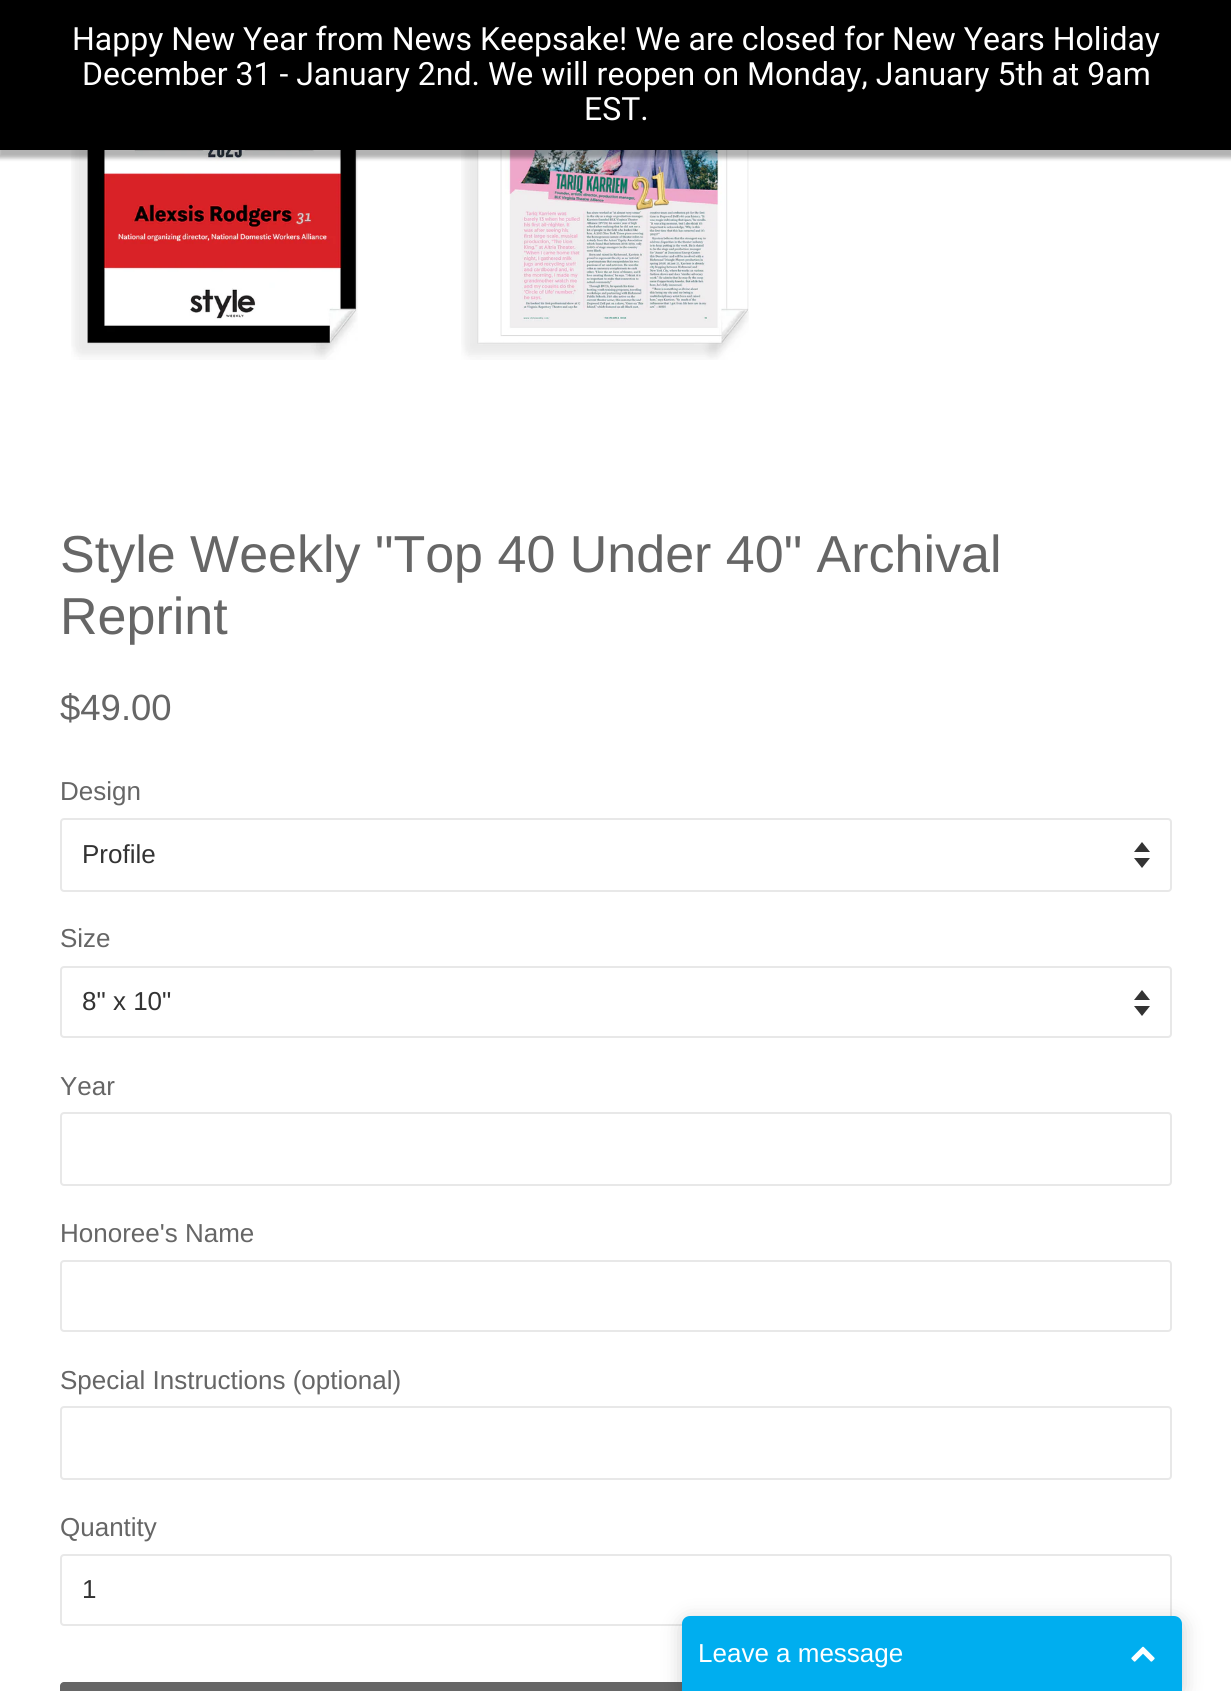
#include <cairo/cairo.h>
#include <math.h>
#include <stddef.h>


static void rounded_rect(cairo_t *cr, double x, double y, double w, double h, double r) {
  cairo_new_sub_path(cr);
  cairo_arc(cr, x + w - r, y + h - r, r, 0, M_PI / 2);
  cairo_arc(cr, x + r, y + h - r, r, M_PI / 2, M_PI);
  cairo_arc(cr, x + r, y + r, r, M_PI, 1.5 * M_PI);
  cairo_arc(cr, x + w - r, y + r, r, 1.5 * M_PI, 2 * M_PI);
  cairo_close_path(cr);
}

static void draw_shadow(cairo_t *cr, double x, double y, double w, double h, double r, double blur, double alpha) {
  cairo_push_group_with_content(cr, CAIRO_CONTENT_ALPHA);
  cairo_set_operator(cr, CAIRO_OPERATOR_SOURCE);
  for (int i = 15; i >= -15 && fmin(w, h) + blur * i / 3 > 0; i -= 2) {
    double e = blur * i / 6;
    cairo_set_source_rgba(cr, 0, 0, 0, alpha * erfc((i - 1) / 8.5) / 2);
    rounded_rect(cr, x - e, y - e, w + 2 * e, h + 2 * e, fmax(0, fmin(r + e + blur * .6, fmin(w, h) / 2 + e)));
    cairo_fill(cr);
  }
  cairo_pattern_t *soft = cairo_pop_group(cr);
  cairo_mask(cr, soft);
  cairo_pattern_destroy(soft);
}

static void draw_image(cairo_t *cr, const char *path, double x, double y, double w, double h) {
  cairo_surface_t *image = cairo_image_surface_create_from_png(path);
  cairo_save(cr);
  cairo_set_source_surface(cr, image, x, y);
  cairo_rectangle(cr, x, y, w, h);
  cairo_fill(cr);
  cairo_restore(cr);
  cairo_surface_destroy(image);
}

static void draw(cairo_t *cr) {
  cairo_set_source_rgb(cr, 1, 1, 1);
  cairo_paint(cr);
  draw_image(cr, "images/1.png", 71, 150, 287, 210);
  draw_image(cr, "images/2.png", 461, 150, 288, 210);
  cairo_set_source_rgb(cr, 0, 0, 0);
  draw_shadow(cr, -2, 4, 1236, 154, 0, 2, 0.3);
  cairo_set_source_rgb(cr, 0, 0, 0);
  cairo_rectangle(cr, 0, 0, 1231, 150);
  cairo_fill(cr);
  cairo_set_source_rgb(cr, 51 / 255.0, 51 / 255.0, 51 / 255.0);
  cairo_new_path(cr);
  cairo_move_to(cr, 1134, 858);
  cairo_line_to(cr, 1142, 868);
  cairo_line_to(cr, 1150, 858);
  cairo_close_path(cr);
  cairo_move_to(cr, 1142, 842);
  cairo_line_to(cr, 1134, 852);
  cairo_line_to(cr, 1150, 852);
  cairo_close_path(cr);
  cairo_fill(cr);
  rounded_rect(cr, 61, 819, 1110, 72, 3);
  cairo_set_source_rgb(cr, 232 / 255.0, 232 / 255.0, 232 / 255.0);
  cairo_stroke(cr);
  cairo_set_source_rgb(cr, 51 / 255.0, 51 / 255.0, 51 / 255.0);
  cairo_new_path(cr);
  cairo_move_to(cr, 1134, 1006);
  cairo_line_to(cr, 1142, 1016);
  cairo_line_to(cr, 1150, 1006);
  cairo_close_path(cr);
  cairo_move_to(cr, 1142, 990);
  cairo_line_to(cr, 1134, 1000);
  cairo_line_to(cr, 1150, 1000);
  cairo_close_path(cr);
  cairo_fill(cr);
  rounded_rect(cr, 61, 967, 1110, 70, 3);
  cairo_set_source_rgb(cr, 232 / 255.0, 232 / 255.0, 232 / 255.0);
  cairo_stroke(cr);
  rounded_rect(cr, 61, 1113, 1110, 72, 3);
  cairo_stroke(cr);
  rounded_rect(cr, 61, 1261, 1110, 70, 3);
  cairo_stroke(cr);
  rounded_rect(cr, 61, 1407, 1110, 72, 3);
  cairo_stroke(cr);
  rounded_rect(cr, 61, 1555, 1110, 70, 3);
  cairo_stroke(cr);
  cairo_set_source_rgb(cr, 102 / 255.0, 102 / 255.0, 102 / 255.0);
  rounded_rect(cr, 60, 1682, 1112, 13, 4);
  cairo_fill(cr);
  cairo_set_source_rgb(cr, 0, 0, 0);
  draw_shadow(cr, 682, 1620, 500, 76, 8, 10, 0.2);
  cairo_set_source_rgb(cr, 0, 174 / 255.0, 239 / 255.0);
  cairo_new_path(cr);
  cairo_move_to(cr, 690, 1616);
  cairo_line_to(cr, 1174, 1616);
  cairo_curve_to(cr, 1178.5, 1616, 1182, 1619.5, 1182, 1624);
  cairo_line_to(cr, 1182, 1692);
  cairo_line_to(cr, 682, 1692);
  cairo_line_to(cr, 682, 1624);
  cairo_curve_to(cr, 682, 1619.5, 685.5, 1616, 690, 1616);
  cairo_close_path(cr);
  cairo_fill(cr);
  draw_image(cr, "images/3.png", 1131, 1646, 24, 16);
  cairo_select_font_face(cr, "Roboto", CAIRO_FONT_SLANT_NORMAL, CAIRO_FONT_WEIGHT_NORMAL);
  cairo_set_font_size(cr, 32);
  cairo_set_source_rgb(cr, 1, 1, 1);
  cairo_move_to(cr, 72, 50);
  cairo_show_text(cr, "Happy New Year from News Keepsake! We are closed for New Years Holiday");
  cairo_move_to(cr, 82, 85);
  cairo_show_text(cr, "December 31 - January 2nd. We will reopen on Monday, January 5th at 9am");
  cairo_move_to(cr, 584, 120);
  cairo_show_text(cr, "EST.");
  cairo_select_font_face(cr, "Liberation Sans", CAIRO_FONT_SLANT_NORMAL, CAIRO_FONT_WEIGHT_NORMAL);
  cairo_set_font_size(cr, 52);
  cairo_set_source_rgb(cr, 102 / 255.0, 102 / 255.0, 102 / 255.0);
  cairo_move_to(cr, 60, 572);
  cairo_show_text(cr, "Style Weekly \"Top 40 Under 40\" Archival");
  cairo_move_to(cr, 60, 634);
  cairo_show_text(cr, "Reprint");
  cairo_set_font_size(cr, 36.5);
  cairo_move_to(cr, 60, 720);
  cairo_show_text(cr, "$49.00");
  cairo_set_font_size(cr, 26);
  cairo_move_to(cr, 60, 800);
  cairo_show_text(cr, "Design");
  cairo_set_source_rgb(cr, 51 / 255.0, 51 / 255.0, 51 / 255.0);
  cairo_move_to(cr, 82, 863);
  cairo_show_text(cr, "Profile");
  cairo_set_source_rgb(cr, 102 / 255.0, 102 / 255.0, 102 / 255.0);
  cairo_move_to(cr, 60, 947);
  cairo_show_text(cr, "Size");
  cairo_set_source_rgb(cr, 51 / 255.0, 51 / 255.0, 51 / 255.0);
  cairo_move_to(cr, 82, 1010);
  cairo_show_text(cr, "8\" x 10\"");
  cairo_set_source_rgb(cr, 102 / 255.0, 102 / 255.0, 102 / 255.0);
  cairo_move_to(cr, 60, 1095);
  cairo_show_text(cr, "Year");
  cairo_move_to(cr, 60, 1242);
  cairo_show_text(cr, "Honoree's Name");
  cairo_move_to(cr, 60, 1389);
  cairo_show_text(cr, "Special Instructions (optional)");
  cairo_move_to(cr, 60, 1536);
  cairo_show_text(cr, "Quantity");
  cairo_set_source_rgb(cr, 51 / 255.0, 51 / 255.0, 51 / 255.0);
  cairo_move_to(cr, 82, 1598);
  cairo_show_text(cr, "1");
  cairo_set_source_rgb(cr, 1, 1, 1);
  cairo_move_to(cr, 698, 1662);
  cairo_show_text(cr, "Leave a message");
}

int main(void) {
  cairo_surface_t *surface = cairo_image_surface_create(CAIRO_FORMAT_RGB24, 1231, 1691);
  cairo_t *cr = cairo_create(surface);
  cairo_font_options_t *options = cairo_font_options_create();
  cairo_font_options_set_hint_metrics(options, CAIRO_HINT_METRICS_OFF);
  cairo_font_options_set_hint_style(options, CAIRO_HINT_STYLE_NONE);
  cairo_set_font_options(cr, options);
  cairo_set_miter_limit(cr, 4);
  draw(cr);
  cairo_surface_write_to_png(surface, "out.png");
  cairo_font_options_destroy(options);
  cairo_destroy(cr);
  cairo_surface_destroy(surface);
  return 0;
}
